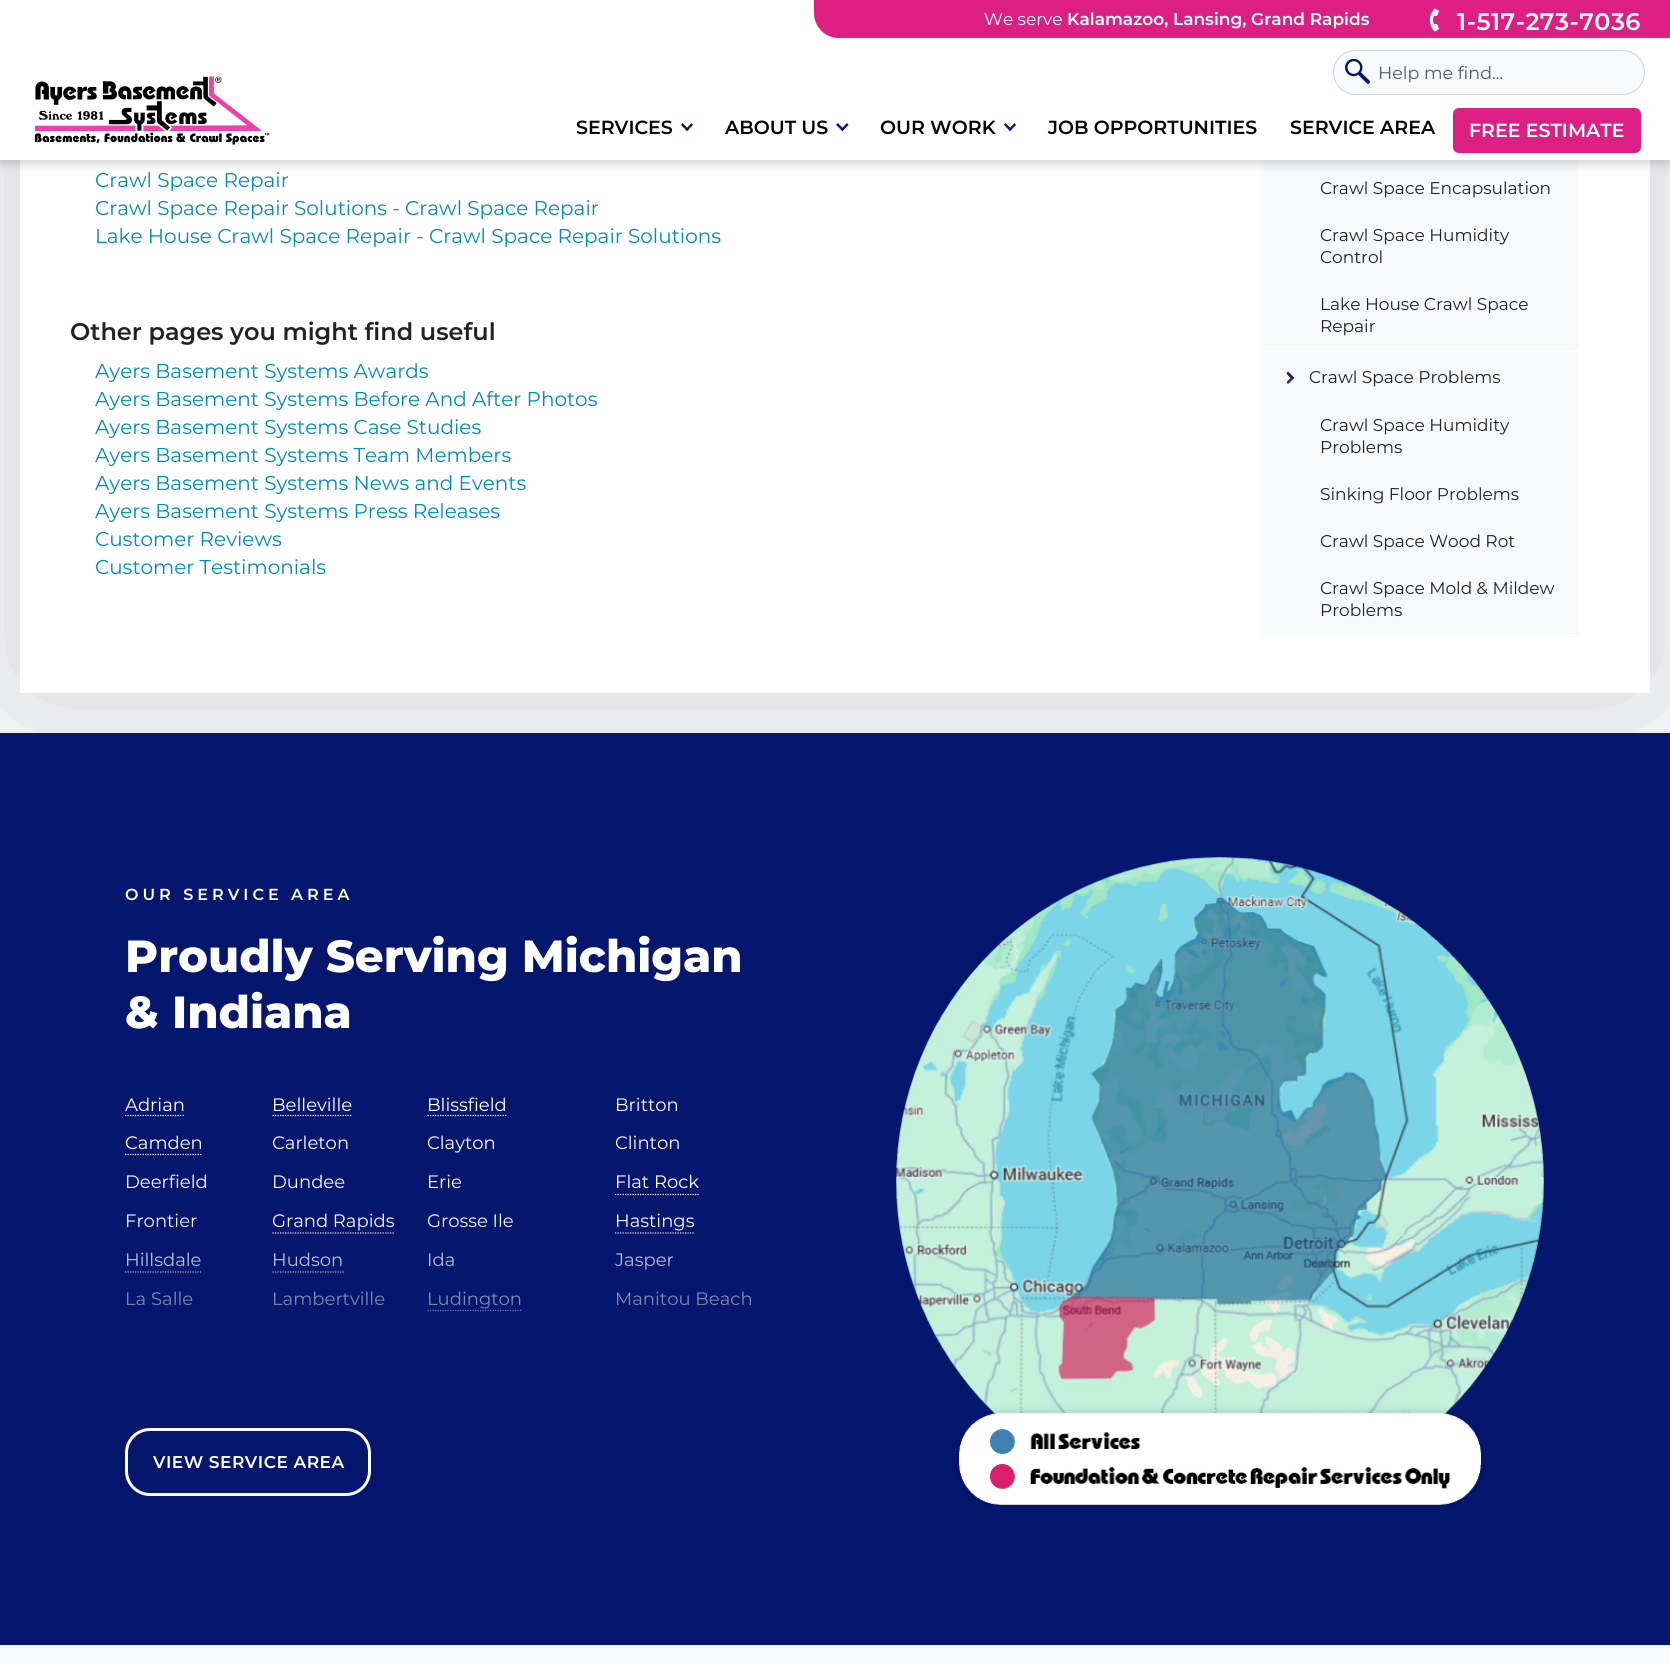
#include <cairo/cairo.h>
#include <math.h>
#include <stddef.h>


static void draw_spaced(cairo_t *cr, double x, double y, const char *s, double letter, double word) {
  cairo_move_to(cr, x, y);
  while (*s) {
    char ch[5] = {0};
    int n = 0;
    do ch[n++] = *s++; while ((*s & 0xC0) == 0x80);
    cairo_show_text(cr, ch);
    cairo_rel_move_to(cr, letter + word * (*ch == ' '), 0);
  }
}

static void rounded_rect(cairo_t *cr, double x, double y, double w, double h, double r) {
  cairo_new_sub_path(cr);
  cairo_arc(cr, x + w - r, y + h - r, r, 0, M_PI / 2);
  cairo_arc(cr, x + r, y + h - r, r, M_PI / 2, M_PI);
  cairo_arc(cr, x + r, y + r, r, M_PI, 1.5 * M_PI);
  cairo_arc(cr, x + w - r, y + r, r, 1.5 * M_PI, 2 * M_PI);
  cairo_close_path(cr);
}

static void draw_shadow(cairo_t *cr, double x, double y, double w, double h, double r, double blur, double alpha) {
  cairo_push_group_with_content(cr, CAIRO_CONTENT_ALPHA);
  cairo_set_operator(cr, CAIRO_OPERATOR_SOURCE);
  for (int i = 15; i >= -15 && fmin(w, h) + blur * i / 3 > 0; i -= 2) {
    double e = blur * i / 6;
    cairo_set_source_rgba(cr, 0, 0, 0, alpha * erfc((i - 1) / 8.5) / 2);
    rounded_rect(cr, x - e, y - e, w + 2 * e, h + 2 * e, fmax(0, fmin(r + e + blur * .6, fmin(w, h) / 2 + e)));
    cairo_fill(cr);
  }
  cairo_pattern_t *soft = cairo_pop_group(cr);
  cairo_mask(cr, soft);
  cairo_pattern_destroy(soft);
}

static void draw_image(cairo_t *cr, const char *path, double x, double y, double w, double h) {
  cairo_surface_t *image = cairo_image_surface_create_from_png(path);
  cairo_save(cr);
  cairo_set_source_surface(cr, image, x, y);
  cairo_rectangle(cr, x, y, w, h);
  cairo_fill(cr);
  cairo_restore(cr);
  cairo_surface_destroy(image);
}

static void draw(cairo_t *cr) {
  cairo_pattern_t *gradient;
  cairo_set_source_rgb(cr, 248 / 255.0, 249 / 255.0, 251 / 255.0);
  cairo_paint(cr);
  cairo_set_source_rgb(cr, 0, 0, 0);
  draw_shadow(cr, 20, -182, 1630, 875, 0, 94, 0.15);
  cairo_set_source_rgb(cr, 1, 1, 1);
  cairo_rectangle(cr, 20, 160, 1630, 533);
  cairo_fill(cr);
  cairo_set_source_rgb(cr, 248 / 255.0, 249 / 255.0, 251 / 255.0);
  cairo_rectangle(cr, 1262, 160, 318, 477);
  cairo_fill(cr);
  cairo_rectangle(cr, 1261.5, -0.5, 319, 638);
  cairo_set_source_rgb(cr, 1, 1, 1);
  cairo_set_line_width(cr, 1);
  cairo_stroke(cr);
  cairo_rectangle(cr, 1263.5, -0.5, 316, 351);
  cairo_stroke(cr);
  cairo_set_source_rgb(cr, 0, 0, 0);
  draw_shadow(cr, 0, 3, 1670, 160, 0, 6, 0.2);
  cairo_set_source_rgb(cr, 1, 1, 1);
  cairo_rectangle(cr, 0, 0, 1670, 160);
  cairo_fill(cr);
  cairo_set_source_rgb(cr, 221 / 255.0, 30 / 255.0, 130 / 255.0);
  cairo_new_path(cr);
  cairo_move_to(cr, 814, 0);
  cairo_line_to(cr, 1670, 0);
  cairo_line_to(cr, 1670, 38);
  cairo_line_to(cr, 839, 38);
  cairo_curve_to(cr, 825, 38, 814, 27, 814, 13);
  cairo_close_path(cr);
  cairo_fill(cr);
  draw_image(cr, "images/1.png", 1429, 8, 10, 24);
  cairo_set_source_rgb(cr, 248 / 255.0, 249 / 255.0, 251 / 255.0);
  rounded_rect(cr, 1333.5, 50.5, 311, 44, 22);
  cairo_fill_preserve(cr);
  cairo_set_source_rgb(cr, 204 / 255.0, 210 / 255.0, 228 / 255.0);
  cairo_stroke(cr);
  draw_image(cr, "images/2.png", 1345, 59, 25, 25);
  draw_image(cr, "images/3.png", 34, 76, 236, 69);
  cairo_set_source_rgb(cr, 4 / 255.0, 22 / 255.0, 110 / 255.0);
  cairo_new_path(cr);
  cairo_move_to(cr, 693, 125);
  cairo_line_to(cr, 687, 131);
  cairo_line_to(cr, 685.5, 129.5);
  cairo_line_to(cr, 691.5, 123);
  cairo_close_path(cr);
  cairo_fill(cr);
  cairo_new_path(cr);
  cairo_move_to(cr, 689, 129.5);
  cairo_line_to(cr, 687, 131);
  cairo_line_to(cr, 681, 125);
  cairo_line_to(cr, 682.5, 123);
  cairo_close_path(cr);
  cairo_fill(cr);
  cairo_new_path(cr);
  cairo_move_to(cr, 848.5, 125);
  cairo_line_to(cr, 842.5, 131);
  cairo_line_to(cr, 840.5, 129.5);
  cairo_line_to(cr, 847, 123);
  cairo_close_path(cr);
  cairo_fill(cr);
  cairo_new_path(cr);
  cairo_move_to(cr, 844, 129.5);
  cairo_line_to(cr, 842.5, 131);
  cairo_line_to(cr, 836, 125);
  cairo_line_to(cr, 838, 123);
  cairo_close_path(cr);
  cairo_fill(cr);
  cairo_new_path(cr);
  cairo_move_to(cr, 1016, 125);
  cairo_line_to(cr, 1010, 131);
  cairo_line_to(cr, 1008.5, 129.5);
  cairo_line_to(cr, 1014.5, 123);
  cairo_close_path(cr);
  cairo_fill(cr);
  cairo_new_path(cr);
  cairo_move_to(cr, 1012, 129.5);
  cairo_line_to(cr, 1010, 131);
  cairo_line_to(cr, 1004, 125);
  cairo_line_to(cr, 1005.5, 123);
  cairo_close_path(cr);
  cairo_fill(cr);
  cairo_set_source_rgb(cr, 221 / 255.0, 30 / 255.0, 130 / 255.0);
  rounded_rect(cr, 1453, 108, 188, 45, 6);
  cairo_fill(cr);
  cairo_rectangle(cr, 1263.5, 351.5, 316, 284);
  cairo_set_source_rgb(cr, 1, 1, 1);
  cairo_stroke(cr);
  cairo_set_source_rgb(cr, 4 / 255.0, 22 / 255.0, 110 / 255.0);
  cairo_new_path(cr);
  cairo_move_to(cr, 1288, 371.5);
  cairo_line_to(cr, 1294.5, 378);
  cairo_line_to(cr, 1290.5, 378);
  cairo_line_to(cr, 1286.5, 373.5);
  cairo_close_path(cr);
  cairo_fill(cr);
  cairo_set_source_rgb(cr, 34 / 255.0, 49 / 255.0, 122 / 255.0);
  cairo_new_path(cr);
  cairo_move_to(cr, 1294.5, 378);
  cairo_line_to(cr, 1288, 384);
  cairo_line_to(cr, 1286.5, 382);
  cairo_line_to(cr, 1290.5, 378);
  cairo_close_path(cr);
  cairo_fill(cr);
  cairo_set_source_rgb(cr, 4 / 255.0, 22 / 255.0, 110 / 255.0);
  cairo_rectangle(cr, 0, 733, 1670, 912);
  cairo_fill(cr);
  cairo_new_path(cr);
  cairo_move_to(cr, 125, 1115.5);
  cairo_line_to(cr, 185, 1115.5);
  cairo_set_source_rgb(cr, 1, 1, 1);
  cairo_set_line_width(cr, 1.2);
  cairo_set_dash(cr, (double[]){1.25, 1.25}, 2, 0);
  cairo_stroke(cr);
  cairo_new_path(cr);
  cairo_move_to(cr, 272.5, 1115.5);
  cairo_line_to(cr, 352.5, 1115.5);
  cairo_stroke(cr);
  cairo_new_path(cr);
  cairo_move_to(cr, 427.5, 1115.5);
  cairo_line_to(cr, 507.5, 1115.5);
  cairo_stroke(cr);
  cairo_new_path(cr);
  cairo_move_to(cr, 125, 1154.5);
  cairo_line_to(cr, 202.5, 1154.5);
  cairo_stroke(cr);
  cairo_new_path(cr);
  cairo_move_to(cr, 615, 1194.5);
  cairo_line_to(cr, 699, 1194.5);
  cairo_stroke(cr);
  cairo_new_path(cr);
  cairo_move_to(cr, 272.5, 1233);
  cairo_line_to(cr, 395, 1233);
  cairo_stroke(cr);
  cairo_new_path(cr);
  cairo_move_to(cr, 615, 1233);
  cairo_line_to(cr, 694, 1233);
  cairo_stroke(cr);
  cairo_new_path(cr);
  cairo_move_to(cr, 125, 1272);
  cairo_line_to(cr, 201, 1272);
  cairo_stroke(cr);
  cairo_new_path(cr);
  cairo_move_to(cr, 272.5, 1272);
  cairo_line_to(cr, 344, 1272);
  cairo_stroke(cr);
  cairo_new_path(cr);
  cairo_move_to(cr, 427.5, 1310.5);
  cairo_line_to(cr, 522.5, 1310.5);
  cairo_stroke(cr);
  rounded_rect(cr, 126.5, 1429.5, 243, 65, 23.5);
  cairo_set_line_width(cr, 3);
  cairo_set_dash(cr, NULL, 0, 0);
  cairo_stroke(cr);
  draw_image(cr, "images/4.png", 896, 857, 648, 651);
  cairo_select_font_face(cr, "Montserrat", CAIRO_FONT_SLANT_NORMAL, CAIRO_FONT_WEIGHT_NORMAL);
  cairo_set_font_size(cr, 17);
  cairo_move_to(cr, 984, 25);
  cairo_show_text(cr, "We serve");
  cairo_select_font_face(cr, "Montserrat SemiBold", CAIRO_FONT_SLANT_NORMAL, CAIRO_FONT_WEIGHT_NORMAL);
  cairo_move_to(cr, 1067, 25);
  cairo_show_text(cr, "Kalamazoo, Lansing, Grand Rapids");
  cairo_set_font_size(cr, 24);
  draw_spaced(cr, 1457, 30, "1-517-273-7036", 0.5, 0);
  cairo_select_font_face(cr, "Montserrat", CAIRO_FONT_SLANT_NORMAL, CAIRO_FONT_WEIGHT_NORMAL);
  cairo_set_font_size(cr, 17.5);
  cairo_set_source_rgb(cr, 87 / 255.0, 88 / 255.0, 89 / 255.0);
  cairo_move_to(cr, 1378, 79);
  cairo_show_text(cr, "Help me find...");
  cairo_select_font_face(cr, "Montserrat SemiBold", CAIRO_FONT_SLANT_NORMAL, CAIRO_FONT_WEIGHT_NORMAL);
  cairo_set_font_size(cr, 19);
  cairo_set_source_rgb(cr, 1 / 255.0, 1 / 255.0, 1 / 255.0);
  cairo_move_to(cr, 576, 134);
  cairo_show_text(cr, "SERVICES");
  cairo_move_to(cr, 725, 134);
  cairo_show_text(cr, "ABOUT US");
  cairo_move_to(cr, 880, 134);
  cairo_show_text(cr, "OUR WORK");
  cairo_move_to(cr, 1048, 134);
  cairo_show_text(cr, "JOB OPPORTUNITIES");
  cairo_move_to(cr, 1290, 134);
  cairo_show_text(cr, "SERVICE AREA");
  cairo_set_source_rgb(cr, 1, 1, 1);
  cairo_move_to(cr, 1469, 137);
  cairo_show_text(cr, "FREE ESTIMATE");
  cairo_select_font_face(cr, "Montserrat", CAIRO_FONT_SLANT_NORMAL, CAIRO_FONT_WEIGHT_NORMAL);
  cairo_set_font_size(cr, 20);
  cairo_set_source_rgb(cr, 0, 140 / 255.0, 186 / 255.0);
  cairo_move_to(cr, 95, 187);
  cairo_show_text(cr, "Crawl Space Repair");
  cairo_move_to(cr, 95, 215);
  cairo_show_text(cr, "Crawl Space Repair Solutions - Crawl Space Repair");
  cairo_move_to(cr, 95, 243);
  cairo_show_text(cr, "Lake House Crawl Space Repair - Crawl Space Repair Solutions");
  cairo_select_font_face(cr, "Montserrat SemiBold", CAIRO_FONT_SLANT_NORMAL, CAIRO_FONT_WEIGHT_NORMAL);
  cairo_set_font_size(cr, 24);
  cairo_set_source_rgb(cr, 34 / 255.0, 34 / 255.0, 34 / 255.0);
  cairo_move_to(cr, 70, 340);
  cairo_show_text(cr, "Other pages you might find useful");
  cairo_select_font_face(cr, "Montserrat", CAIRO_FONT_SLANT_NORMAL, CAIRO_FONT_WEIGHT_NORMAL);
  cairo_set_font_size(cr, 20);
  cairo_set_source_rgb(cr, 0, 140 / 255.0, 186 / 255.0);
  cairo_move_to(cr, 95, 378);
  cairo_show_text(cr, "Ayers Basement Systems Awards");
  cairo_move_to(cr, 95, 406);
  cairo_show_text(cr, "Ayers Basement Systems Before And After Photos");
  cairo_move_to(cr, 95, 434);
  cairo_show_text(cr, "Ayers Basement Systems Case Studies");
  cairo_move_to(cr, 95, 462);
  cairo_show_text(cr, "Ayers Basement Systems Team Members");
  cairo_move_to(cr, 95, 490);
  cairo_show_text(cr, "Ayers Basement Systems News and Events");
  cairo_move_to(cr, 95, 518);
  cairo_show_text(cr, "Ayers Basement Systems Press Releases");
  cairo_move_to(cr, 95, 546);
  cairo_show_text(cr, "Customer Reviews");
  cairo_move_to(cr, 95, 574);
  cairo_show_text(cr, "Customer Testimonials");
  cairo_set_font_size(cr, 17);
  cairo_set_source_rgb(cr, 34 / 255.0, 34 / 255.0, 34 / 255.0);
  cairo_move_to(cr, 1320, 194);
  cairo_show_text(cr, "Crawl Space Encapsulation");
  cairo_move_to(cr, 1320, 241);
  cairo_show_text(cr, "Crawl Space Humidity");
  cairo_move_to(cr, 1320, 263);
  cairo_show_text(cr, "Control");
  cairo_move_to(cr, 1320, 310);
  cairo_show_text(cr, "Lake House Crawl Space");
  cairo_move_to(cr, 1320, 332);
  cairo_show_text(cr, "Repair");
  cairo_move_to(cr, 1309, 383);
  cairo_show_text(cr, "Crawl Space Problems");
  cairo_move_to(cr, 1320, 431);
  cairo_show_text(cr, "Crawl Space Humidity");
  cairo_move_to(cr, 1320, 453);
  cairo_show_text(cr, "Problems");
  cairo_move_to(cr, 1320, 500);
  cairo_show_text(cr, "Sinking Floor Problems");
  cairo_move_to(cr, 1320, 547);
  cairo_show_text(cr, "Crawl Space Wood Rot");
  cairo_move_to(cr, 1320, 594);
  cairo_show_text(cr, "Crawl Space Mold & Mildew");
  cairo_move_to(cr, 1320, 616);
  cairo_show_text(cr, "Problems");
  cairo_select_font_face(cr, "Montserrat SemiBold", CAIRO_FONT_SLANT_NORMAL, CAIRO_FONT_WEIGHT_NORMAL);
  cairo_set_font_size(cr, 16);
  cairo_set_source_rgb(cr, 1, 1, 1);
  draw_spaced(cr, 125, 900, "OUR SERVICE AREA", 4, 0);
  cairo_select_font_face(cr, "Montserrat ExtraBold", CAIRO_FONT_SLANT_NORMAL, CAIRO_FONT_WEIGHT_NORMAL);
  cairo_set_font_size(cr, 45);
  cairo_move_to(cr, 125, 972);
  cairo_show_text(cr, "Proudly Serving Michigan");
  cairo_move_to(cr, 125, 1028);
  cairo_show_text(cr, "& Indiana");
  cairo_select_font_face(cr, "Montserrat", CAIRO_FONT_SLANT_NORMAL, CAIRO_FONT_WEIGHT_NORMAL);
  cairo_set_font_size(cr, 18);
  cairo_move_to(cr, 125, 1111);
  cairo_show_text(cr, "Adrian");
  cairo_move_to(cr, 272, 1111);
  cairo_show_text(cr, "Belleville");
  cairo_move_to(cr, 427, 1111);
  cairo_show_text(cr, "Blissfield");
  cairo_set_source_rgb(cr, 248 / 255.0, 249 / 255.0, 251 / 255.0);
  cairo_move_to(cr, 615, 1111);
  cairo_show_text(cr, "Britton");
  cairo_set_source_rgb(cr, 1, 1, 1);
  cairo_move_to(cr, 125, 1149);
  cairo_show_text(cr, "Camden");
  cairo_set_source_rgb(cr, 248 / 255.0, 249 / 255.0, 251 / 255.0);
  cairo_move_to(cr, 272, 1149);
  cairo_show_text(cr, "Carleton");
  cairo_move_to(cr, 427, 1149);
  cairo_show_text(cr, "Clayton");
  cairo_move_to(cr, 615, 1149);
  cairo_show_text(cr, "Clinton");
  cairo_move_to(cr, 125, 1188);
  cairo_show_text(cr, "Deerfield");
  cairo_move_to(cr, 272, 1188);
  cairo_show_text(cr, "Dundee");
  cairo_move_to(cr, 427, 1188);
  cairo_show_text(cr, "Erie");
  cairo_set_source_rgb(cr, 1, 1, 1);
  cairo_move_to(cr, 615, 1188);
  cairo_show_text(cr, "Flat Rock");
  cairo_set_source_rgb(cr, 248 / 255.0, 249 / 255.0, 251 / 255.0);
  cairo_move_to(cr, 125, 1227);
  cairo_show_text(cr, "Frontier");
  cairo_set_source_rgb(cr, 1, 1, 1);
  cairo_move_to(cr, 272, 1227);
  cairo_show_text(cr, "Grand Rapids");
  cairo_set_source_rgb(cr, 248 / 255.0, 249 / 255.0, 251 / 255.0);
  cairo_move_to(cr, 427, 1227);
  cairo_show_text(cr, "Grosse Ile");
  cairo_set_source_rgb(cr, 1, 1, 1);
  cairo_move_to(cr, 615, 1227);
  cairo_show_text(cr, "Hastings");
  cairo_move_to(cr, 125, 1266);
  cairo_show_text(cr, "Hillsdale");
  cairo_move_to(cr, 272, 1266);
  cairo_show_text(cr, "Hudson");
  cairo_set_source_rgb(cr, 248 / 255.0, 249 / 255.0, 251 / 255.0);
  cairo_move_to(cr, 427, 1266);
  cairo_show_text(cr, "Ida");
  cairo_move_to(cr, 615, 1266);
  cairo_show_text(cr, "Jasper");
  cairo_move_to(cr, 125, 1305);
  cairo_show_text(cr, "La Salle");
  cairo_move_to(cr, 272, 1305);
  cairo_show_text(cr, "Lambertville");
  cairo_set_source_rgb(cr, 1, 1, 1);
  cairo_move_to(cr, 427, 1305);
  cairo_show_text(cr, "Ludington");
  cairo_set_source_rgb(cr, 248 / 255.0, 249 / 255.0, 251 / 255.0);
  cairo_move_to(cr, 615, 1305);
  cairo_show_text(cr, "Manitou Beach");
  gradient = cairo_pattern_create_linear(450, 1403, 450, 1215);
  cairo_pattern_add_color_stop_rgba(gradient, 0.1, 4 / 255.0, 22 / 255.0, 110 / 255.0, 1);
  cairo_pattern_add_color_stop_rgba(gradient, 1, 4 / 255.0, 22 / 255.0, 110 / 255.0, 0);
  cairo_set_source(cr, gradient);
  cairo_pattern_destroy(gradient);
  cairo_rectangle(cr, 125, 1219, 626, 93);
  cairo_fill(cr);
  cairo_select_font_face(cr, "Montserrat SemiBold", CAIRO_FONT_SLANT_NORMAL, CAIRO_FONT_WEIGHT_NORMAL);
  cairo_set_font_size(cr, 17);
  cairo_set_source_rgb(cr, 1, 1, 1);
  draw_spaced(cr, 153, 1468, "VIEW SERVICE AREA", 0.5, 0);
}

int main(void) {
  cairo_surface_t *surface = cairo_image_surface_create(CAIRO_FORMAT_RGB24, 1670, 1663);
  cairo_t *cr = cairo_create(surface);
  cairo_font_options_t *options = cairo_font_options_create();
  cairo_font_options_set_hint_metrics(options, CAIRO_HINT_METRICS_OFF);
  cairo_font_options_set_hint_style(options, CAIRO_HINT_STYLE_NONE);
  cairo_set_font_options(cr, options);
  cairo_set_miter_limit(cr, 4);
  draw(cr);
  cairo_surface_write_to_png(surface, "out.png");
  cairo_font_options_destroy(options);
  cairo_destroy(cr);
  cairo_surface_destroy(surface);
  return 0;
}
